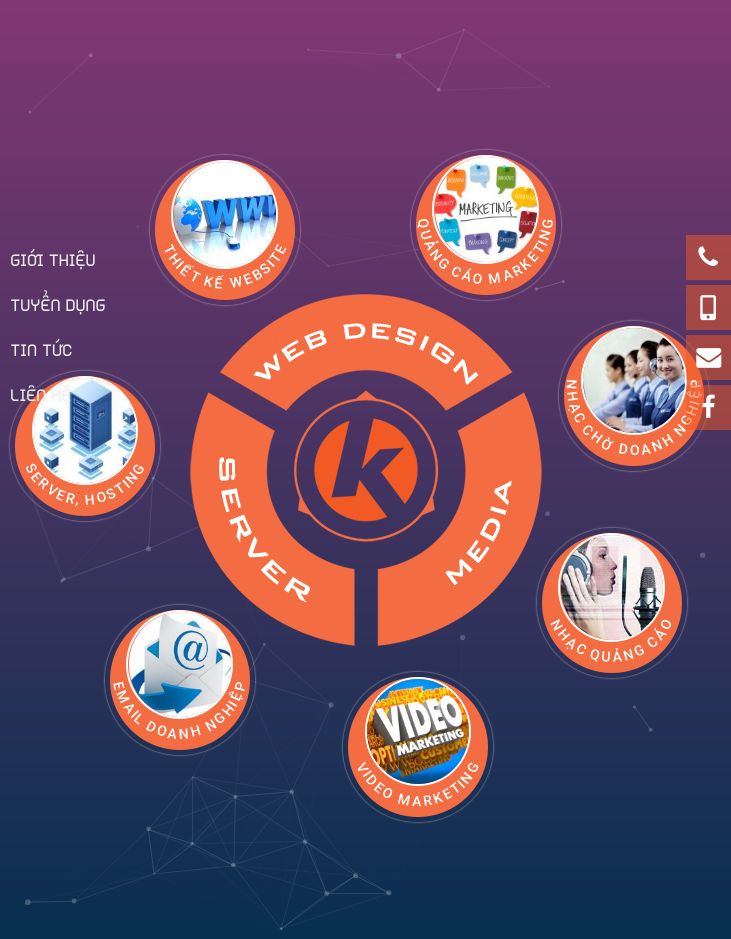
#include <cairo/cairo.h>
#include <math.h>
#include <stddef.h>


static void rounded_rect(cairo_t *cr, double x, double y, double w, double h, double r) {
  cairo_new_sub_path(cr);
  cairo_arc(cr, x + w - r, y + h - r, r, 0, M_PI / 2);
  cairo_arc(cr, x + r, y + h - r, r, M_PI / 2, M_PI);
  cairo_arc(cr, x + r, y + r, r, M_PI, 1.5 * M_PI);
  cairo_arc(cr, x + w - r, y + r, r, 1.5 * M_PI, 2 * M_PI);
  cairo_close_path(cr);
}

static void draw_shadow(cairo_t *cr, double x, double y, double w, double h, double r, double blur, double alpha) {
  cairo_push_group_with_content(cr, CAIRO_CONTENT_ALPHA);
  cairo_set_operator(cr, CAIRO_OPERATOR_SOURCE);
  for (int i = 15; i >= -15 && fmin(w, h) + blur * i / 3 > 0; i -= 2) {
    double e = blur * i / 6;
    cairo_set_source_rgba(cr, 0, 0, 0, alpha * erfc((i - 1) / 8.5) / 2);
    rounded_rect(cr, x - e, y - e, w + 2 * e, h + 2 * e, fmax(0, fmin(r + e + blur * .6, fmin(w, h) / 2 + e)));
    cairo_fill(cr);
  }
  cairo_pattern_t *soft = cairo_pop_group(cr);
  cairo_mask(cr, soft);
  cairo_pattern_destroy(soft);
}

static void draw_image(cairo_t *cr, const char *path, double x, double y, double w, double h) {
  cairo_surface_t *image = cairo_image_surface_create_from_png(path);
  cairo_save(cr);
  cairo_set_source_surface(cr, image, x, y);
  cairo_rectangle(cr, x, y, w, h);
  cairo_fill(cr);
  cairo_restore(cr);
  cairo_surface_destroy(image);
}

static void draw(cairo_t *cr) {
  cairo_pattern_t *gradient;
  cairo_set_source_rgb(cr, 1, 1, 1);
  cairo_paint(cr);
  gradient = cairo_pattern_create_linear(366, 939, 366, 0);
  cairo_pattern_add_color_stop_rgba(gradient, 0, 7 / 255.0, 47 / 255.0, 79 / 255.0, 1);
  cairo_pattern_add_color_stop_rgba(gradient, 1, 129 / 255.0, 55 / 255.0, 114 / 255.0, 1);
  cairo_set_source(cr, gradient);
  cairo_pattern_destroy(gradient);
  cairo_rectangle(cr, 0, 0, 731, 939);
  cairo_fill(cr);
  gradient = cairo_pattern_create_linear(366, 939, 366, 0);
  cairo_pattern_add_color_stop_rgba(gradient, 0, 124 / 255.0, 69 / 255.0, 58 / 255.0, 1);
  cairo_pattern_add_color_stop_rgba(gradient, 1, 185 / 255.0, 73 / 255.0, 75 / 255.0, 1);
  cairo_set_source(cr, gradient);
  cairo_pattern_destroy(gradient);
  cairo_rectangle(cr, 686, 285, 45, 45);
  cairo_fill(cr);
  cairo_rectangle(cr, 686, 235, 45, 45);
  cairo_fill(cr);
  draw_image(cr, "images/1.png", 23, 29, 683, 902);
  draw_image(cr, "images/9.png", 190, 294, 352, 352);
  cairo_save(cr);
  cairo_set_fill_rule(cr, CAIRO_FILL_RULE_EVEN_ODD);
  cairo_new_path(cr);
  cairo_move_to(cr, 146, 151);
  cairo_line_to(cr, 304, 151);
  cairo_line_to(cr, 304, 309);
  cairo_line_to(cr, 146, 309);
  cairo_close_path(cr);
  cairo_move_to(cr, 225, 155);
  cairo_curve_to(cr, 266.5, 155, 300, 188.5, 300, 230);
  cairo_curve_to(cr, 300, 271.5, 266.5, 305, 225, 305);
  cairo_curve_to(cr, 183.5, 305, 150, 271.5, 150, 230);
  cairo_curve_to(cr, 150, 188.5, 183.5, 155, 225, 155);
  cairo_close_path(cr);
  cairo_clip(cr);
  cairo_set_source_rgb(cr, 185 / 255.0, 185 / 255.0, 185 / 255.0);
  draw_shadow(cr, 150, 155, 150, 150, 75, 1, 1);
  cairo_restore(cr);
  cairo_set_source_rgb(cr, 244 / 255.0, 108 / 255.0, 66 / 255.0);
  cairo_arc(cr, 225, 230, 70, 0, 2 * M_PI);
  cairo_fill(cr);
  cairo_new_path(cr);
  cairo_move_to(cr, 224.5, 161);
  cairo_curve_to(cr, 253.5, 161, 277, 185, 277, 214.5);
  cairo_curve_to(cr, 277, 244, 253.5, 268, 224.5, 268);
  cairo_curve_to(cr, 195.5, 268, 172, 244, 172, 214.5);
  cairo_curve_to(cr, 172, 185, 195.5, 161, 224.5, 161);
  cairo_close_path(cr);
  cairo_set_source_rgb(cr, 1, 1, 1);
  cairo_stroke(cr);
  draw_image(cr, "images/2.png", 174, 162, 102, 105);
  cairo_save(cr);
  cairo_set_fill_rule(cr, CAIRO_FILL_RULE_EVEN_ODD);
  cairo_new_path(cr);
  cairo_move_to(cr, 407, 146);
  cairo_line_to(cr, 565, 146);
  cairo_line_to(cr, 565, 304);
  cairo_line_to(cr, 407, 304);
  cairo_close_path(cr);
  cairo_move_to(cr, 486, 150);
  cairo_curve_to(cr, 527.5, 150, 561, 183.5, 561, 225);
  cairo_curve_to(cr, 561, 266.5, 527.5, 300, 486, 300);
  cairo_curve_to(cr, 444.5, 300, 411, 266.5, 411, 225);
  cairo_curve_to(cr, 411, 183.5, 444.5, 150, 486, 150);
  cairo_close_path(cr);
  cairo_clip(cr);
  cairo_set_source_rgb(cr, 185 / 255.0, 185 / 255.0, 185 / 255.0);
  draw_shadow(cr, 411, 150, 150, 150, 75, 1, 1);
  cairo_restore(cr);
  cairo_set_source_rgb(cr, 244 / 255.0, 108 / 255.0, 66 / 255.0);
  cairo_arc(cr, 486, 225, 70, 0, 2 * M_PI);
  cairo_fill(cr);
  cairo_new_path(cr);
  cairo_move_to(cr, 485.5, 156);
  cairo_curve_to(cr, 514.5, 156, 538, 180, 538, 209.5);
  cairo_curve_to(cr, 538, 239, 514.5, 263, 485.5, 263);
  cairo_curve_to(cr, 456.5, 263, 433, 239, 433, 209.5);
  cairo_curve_to(cr, 433, 180, 456.5, 156, 485.5, 156);
  cairo_close_path(cr);
  cairo_set_source_rgb(cr, 1, 1, 1);
  cairo_stroke(cr);
  draw_image(cr, "images/3.png", 435, 157, 102, 105);
  cairo_save(cr);
  cairo_set_fill_rule(cr, CAIRO_FILL_RULE_EVEN_ODD);
  cairo_new_path(cr);
  cairo_move_to(cr, 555, 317);
  cairo_line_to(cr, 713, 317);
  cairo_line_to(cr, 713, 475);
  cairo_line_to(cr, 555, 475);
  cairo_close_path(cr);
  cairo_move_to(cr, 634, 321);
  cairo_curve_to(cr, 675.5, 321, 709, 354.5, 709, 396);
  cairo_curve_to(cr, 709, 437.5, 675.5, 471, 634, 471);
  cairo_curve_to(cr, 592.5, 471, 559, 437.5, 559, 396);
  cairo_curve_to(cr, 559, 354.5, 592.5, 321, 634, 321);
  cairo_close_path(cr);
  cairo_clip(cr);
  cairo_set_source_rgb(cr, 185 / 255.0, 185 / 255.0, 185 / 255.0);
  draw_shadow(cr, 559, 321, 150, 150, 75, 1, 1);
  cairo_restore(cr);
  cairo_set_source_rgb(cr, 244 / 255.0, 108 / 255.0, 66 / 255.0);
  cairo_arc(cr, 634, 396, 70, 0, 2 * M_PI);
  cairo_fill(cr);
  cairo_new_path(cr);
  cairo_move_to(cr, 634, 327);
  cairo_curve_to(cr, 662.5, 327, 686, 351, 686, 380.5);
  cairo_curve_to(cr, 686, 410, 662.5, 434, 634, 434);
  cairo_curve_to(cr, 605.5, 434, 582, 410, 582, 380.5);
  cairo_curve_to(cr, 582, 351, 605.5, 327, 634, 327);
  cairo_close_path(cr);
  cairo_set_source_rgb(cr, 1, 1, 1);
  cairo_stroke(cr);
  draw_image(cr, "images/4.png", 583, 328, 102, 105);
  cairo_save(cr);
  cairo_set_fill_rule(cr, CAIRO_FILL_RULE_EVEN_ODD);
  cairo_new_path(cr);
  cairo_move_to(cr, 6, 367);
  cairo_line_to(cr, 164, 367);
  cairo_line_to(cr, 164, 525);
  cairo_line_to(cr, 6, 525);
  cairo_close_path(cr);
  cairo_move_to(cr, 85, 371);
  cairo_curve_to(cr, 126.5, 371, 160, 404.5, 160, 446);
  cairo_curve_to(cr, 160, 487.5, 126.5, 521, 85, 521);
  cairo_curve_to(cr, 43.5, 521, 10, 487.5, 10, 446);
  cairo_curve_to(cr, 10, 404.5, 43.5, 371, 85, 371);
  cairo_close_path(cr);
  cairo_clip(cr);
  cairo_set_source_rgb(cr, 185 / 255.0, 185 / 255.0, 185 / 255.0);
  draw_shadow(cr, 10, 371, 150, 150, 75, 1, 1);
  cairo_restore(cr);
  cairo_set_source_rgb(cr, 244 / 255.0, 108 / 255.0, 66 / 255.0);
  cairo_arc(cr, 85, 446, 70, 0, 2 * M_PI);
  cairo_fill(cr);
  cairo_new_path(cr);
  cairo_move_to(cr, 85, 377);
  cairo_curve_to(cr, 113.5, 377, 137, 401, 137, 430.5);
  cairo_curve_to(cr, 137, 460, 113.5, 484, 85, 484);
  cairo_curve_to(cr, 56.5, 484, 33, 460, 33, 430.5);
  cairo_curve_to(cr, 33, 401, 56.5, 377, 85, 377);
  cairo_close_path(cr);
  cairo_set_source_rgb(cr, 1, 1, 1);
  cairo_stroke(cr);
  draw_image(cr, "images/5.png", 34, 378, 102, 105);
  cairo_save(cr);
  cairo_set_fill_rule(cr, CAIRO_FILL_RULE_EVEN_ODD);
  cairo_new_path(cr);
  cairo_move_to(cr, 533, 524);
  cairo_line_to(cr, 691, 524);
  cairo_line_to(cr, 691, 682);
  cairo_line_to(cr, 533, 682);
  cairo_close_path(cr);
  cairo_move_to(cr, 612, 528);
  cairo_curve_to(cr, 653.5, 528, 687, 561.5, 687, 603);
  cairo_curve_to(cr, 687, 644.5, 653.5, 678, 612, 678);
  cairo_curve_to(cr, 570.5, 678, 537, 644.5, 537, 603);
  cairo_curve_to(cr, 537, 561.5, 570.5, 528, 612, 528);
  cairo_close_path(cr);
  cairo_clip(cr);
  cairo_set_source_rgb(cr, 185 / 255.0, 185 / 255.0, 185 / 255.0);
  draw_shadow(cr, 537, 528, 150, 150, 75, 1, 1);
  cairo_restore(cr);
  cairo_set_source_rgb(cr, 244 / 255.0, 108 / 255.0, 66 / 255.0);
  cairo_arc(cr, 612, 603, 70, 0, 2 * M_PI);
  cairo_fill(cr);
  cairo_new_path(cr);
  cairo_move_to(cr, 611.5, 534);
  cairo_curve_to(cr, 640.5, 534, 664, 558, 664, 587.5);
  cairo_curve_to(cr, 664, 617, 640.5, 641, 611.5, 641);
  cairo_curve_to(cr, 582.5, 641, 559, 617, 559, 587.5);
  cairo_curve_to(cr, 559, 558, 582.5, 534, 611.5, 534);
  cairo_close_path(cr);
  cairo_set_source_rgb(cr, 1, 1, 1);
  cairo_stroke(cr);
  draw_image(cr, "images/6.png", 561, 535, 102, 105);
  cairo_save(cr);
  cairo_set_fill_rule(cr, CAIRO_FILL_RULE_EVEN_ODD);
  cairo_new_path(cr);
  cairo_move_to(cr, 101, 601);
  cairo_line_to(cr, 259, 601);
  cairo_line_to(cr, 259, 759);
  cairo_line_to(cr, 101, 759);
  cairo_close_path(cr);
  cairo_move_to(cr, 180, 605);
  cairo_curve_to(cr, 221.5, 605, 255, 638.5, 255, 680);
  cairo_curve_to(cr, 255, 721.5, 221.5, 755, 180, 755);
  cairo_curve_to(cr, 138.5, 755, 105, 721.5, 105, 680);
  cairo_curve_to(cr, 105, 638.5, 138.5, 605, 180, 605);
  cairo_close_path(cr);
  cairo_clip(cr);
  cairo_set_source_rgb(cr, 185 / 255.0, 185 / 255.0, 185 / 255.0);
  draw_shadow(cr, 105, 605, 150, 150, 75, 1, 1);
  cairo_restore(cr);
  cairo_set_source_rgb(cr, 244 / 255.0, 108 / 255.0, 66 / 255.0);
  cairo_arc(cr, 180, 680, 70, 0, 2 * M_PI);
  cairo_fill(cr);
  cairo_new_path(cr);
  cairo_move_to(cr, 179.5, 611);
  cairo_curve_to(cr, 208.5, 611, 232, 635, 232, 664.5);
  cairo_curve_to(cr, 232, 694, 208.5, 718, 179.5, 718);
  cairo_curve_to(cr, 150.5, 718, 127, 694, 127, 664.5);
  cairo_curve_to(cr, 127, 635, 150.5, 611, 179.5, 611);
  cairo_close_path(cr);
  cairo_set_source_rgb(cr, 1, 1, 1);
  cairo_stroke(cr);
  draw_image(cr, "images/7.png", 129, 612, 102, 105);
  cairo_save(cr);
  cairo_set_fill_rule(cr, CAIRO_FILL_RULE_EVEN_ODD);
  cairo_new_path(cr);
  cairo_move_to(cr, 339, 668);
  cairo_line_to(cr, 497, 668);
  cairo_line_to(cr, 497, 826);
  cairo_line_to(cr, 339, 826);
  cairo_close_path(cr);
  cairo_move_to(cr, 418, 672);
  cairo_curve_to(cr, 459.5, 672, 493, 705.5, 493, 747);
  cairo_curve_to(cr, 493, 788.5, 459.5, 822, 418, 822);
  cairo_curve_to(cr, 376.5, 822, 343, 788.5, 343, 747);
  cairo_curve_to(cr, 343, 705.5, 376.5, 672, 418, 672);
  cairo_close_path(cr);
  cairo_clip(cr);
  cairo_set_source_rgb(cr, 185 / 255.0, 185 / 255.0, 185 / 255.0);
  draw_shadow(cr, 343, 672, 150, 150, 75, 1, 1);
  cairo_restore(cr);
  cairo_set_source_rgb(cr, 244 / 255.0, 108 / 255.0, 66 / 255.0);
  cairo_arc(cr, 418, 747, 70, 0, 2 * M_PI);
  cairo_fill(cr);
  cairo_new_path(cr);
  cairo_move_to(cr, 418, 678);
  cairo_curve_to(cr, 446.5, 678, 470, 702, 470, 731.5);
  cairo_curve_to(cr, 470, 761, 446.5, 785, 418, 785);
  cairo_curve_to(cr, 389.5, 785, 366, 761, 366, 731.5);
  cairo_curve_to(cr, 366, 702, 389.5, 678, 418, 678);
  cairo_close_path(cr);
  cairo_set_source_rgb(cr, 1, 1, 1);
  cairo_stroke(cr);
  draw_image(cr, "images/8.png", 367, 679, 102, 105);
  draw_image(cr, "images/10.png", 698, 246, 20, 20);
  draw_image(cr, "images/11.png", 700, 295, 16, 26);
  cairo_set_source_rgba(cr, 241 / 255.0, 90 / 255.0, 36 / 255.0, 0.5);
  cairo_rectangle(cr, 686, 335, 45, 45);
  cairo_fill(cr);
  draw_image(cr, "images/12.png", 696, 348, 26, 20);
  cairo_select_font_face(cr, "Roboto Medium", CAIRO_FONT_SLANT_NORMAL, CAIRO_FONT_WEIGHT_NORMAL);
  cairo_set_font_size(cr, 14);
  cairo_set_source_rgb(cr, 1, 1, 1);
  cairo_save(cr);
  cairo_translate(cr, 163, 248);
  cairo_rotate(cr, 63.2 * M_PI / 180);
  cairo_move_to(cr, 0, 0);
  cairo_show_text(cr, "T");
  cairo_restore(cr);
  cairo_save(cr);
  cairo_translate(cr, 283, 255);
  cairo_rotate(cr, -63.6 * M_PI / 180);
  cairo_move_to(cr, 0, 0);
  cairo_show_text(cr, "E");
  cairo_restore(cr);
  cairo_save(cr);
  cairo_translate(cr, 168, 258);
  cairo_rotate(cr, 53.1 * M_PI / 180);
  cairo_move_to(cr, 0, 0);
  cairo_show_text(cr, "H");
  cairo_restore(cr);
  cairo_save(cr);
  cairo_translate(cr, 277, 264);
  cairo_rotate(cr, -54.5 * M_PI / 180);
  cairo_move_to(cr, 0, 0);
  cairo_show_text(cr, "T");
  cairo_restore(cr);
  cairo_save(cr);
  cairo_translate(cr, 175, 267);
  cairo_rotate(cr, 45.4 * M_PI / 180);
  cairo_move_to(cr, 0, 0);
  cairo_show_text(cr, "I");
  cairo_restore(cr);
  cairo_save(cr);
  cairo_translate(cr, 179, 272);
  cairo_rotate(cr, 38.1 * M_PI / 180);
  cairo_move_to(cr, 0, 0);
  cairo_show_text(cr, "Ế");
  cairo_restore(cr);
  cairo_save(cr);
  cairo_translate(cr, 189, 279);
  cairo_rotate(cr, 28.2 * M_PI / 180);
  cairo_move_to(cr, 0, 0);
  cairo_show_text(cr, "T");
  cairo_restore(cr);
  cairo_save(cr);
  cairo_translate(cr, 203, 285);
  cairo_rotate(cr, 14.8 * M_PI / 180);
  cairo_move_to(cr, 0, 0);
  cairo_show_text(cr, "K");
  cairo_restore(cr);
  cairo_save(cr);
  cairo_translate(cr, 214, 288);
  cairo_rotate(cr, 4.8 * M_PI / 180);
  cairo_move_to(cr, 0, 0);
  cairo_show_text(cr, "Ế");
  cairo_restore(cr);
  cairo_save(cr);
  cairo_translate(cr, 231, 288);
  cairo_rotate(cr, -11 * M_PI / 180);
  cairo_move_to(cr, 0, 0);
  cairo_show_text(cr, "W");
  cairo_restore(cr);
  cairo_save(cr);
  cairo_translate(cr, 246, 285);
  cairo_rotate(cr, -22.2 * M_PI / 180);
  cairo_move_to(cr, 0, 0);
  cairo_show_text(cr, "E");
  cairo_restore(cr);
  cairo_save(cr);
  cairo_translate(cr, 256, 281);
  cairo_rotate(cr, -31.4 * M_PI / 180);
  cairo_move_to(cr, 0, 0);
  cairo_show_text(cr, "B");
  cairo_restore(cr);
  cairo_save(cr);
  cairo_translate(cr, 265, 275);
  cairo_rotate(cr, -41 * M_PI / 180);
  cairo_move_to(cr, 0, 0);
  cairo_show_text(cr, "S");
  cairo_restore(cr);
  cairo_save(cr);
  cairo_translate(cr, 273, 268);
  cairo_rotate(cr, -47.7 * M_PI / 180);
  cairo_move_to(cr, 0, 0);
  cairo_show_text(cr, "I");
  cairo_restore(cr);
  cairo_save(cr);
  cairo_translate(cr, 418, 219);
  cairo_rotate(cr, 83.9 * M_PI / 180);
  cairo_move_to(cr, 0, 0);
  cairo_show_text(cr, "Q");
  cairo_restore(cr);
  cairo_save(cr);
  cairo_translate(cr, 552, 229);
  cairo_rotate(cr, -84 * M_PI / 180);
  cairo_move_to(cr, 0, 0);
  cairo_show_text(cr, "G");
  cairo_restore(cr);
  cairo_save(cr);
  cairo_translate(cr, 420, 232);
  cairo_rotate(cr, 73.5 * M_PI / 180);
  cairo_move_to(cr, 0, 0);
  cairo_show_text(cr, "U");
  cairo_restore(cr);
  cairo_save(cr);
  cairo_translate(cr, 548, 241);
  cairo_rotate(cr, -73.2 * M_PI / 180);
  cairo_move_to(cr, 0, 0);
  cairo_show_text(cr, "N");
  cairo_restore(cr);
  cairo_save(cr);
  cairo_translate(cr, 424, 243);
  cairo_rotate(cr, 63.3 * M_PI / 180);
  cairo_move_to(cr, 0, 0);
  cairo_show_text(cr, "Ả");
  cairo_restore(cr);
  cairo_save(cr);
  cairo_translate(cr, 429, 254);
  cairo_rotate(cr, 52.7 * M_PI / 180);
  cairo_move_to(cr, 0, 0);
  cairo_show_text(cr, "N");
  cairo_restore(cr);
  cairo_save(cr);
  cairo_translate(cr, 541, 255);
  cairo_rotate(cr, -58.7 * M_PI / 180);
  cairo_move_to(cr, 0, 0);
  cairo_show_text(cr, "T");
  cairo_restore(cr);
  cairo_save(cr);
  cairo_translate(cr, 546, 247);
  cairo_rotate(cr, -65.6 * M_PI / 180);
  cairo_move_to(cr, 0, 0);
  cairo_show_text(cr, "I");
  cairo_restore(cr);
  cairo_save(cr);
  cairo_translate(cr, 437, 264);
  cairo_rotate(cr, 42 * M_PI / 180);
  cairo_move_to(cr, 0, 0);
  cairo_show_text(cr, "G");
  cairo_restore(cr);
  cairo_save(cr);
  cairo_translate(cr, 450, 274);
  cairo_rotate(cr, 27.9 * M_PI / 180);
  cairo_move_to(cr, 0, 0);
  cairo_show_text(cr, "C");
  cairo_restore(cr);
  cairo_save(cr);
  cairo_translate(cr, 461, 279);
  cairo_rotate(cr, 17.8 * M_PI / 180);
  cairo_move_to(cr, 0, 0);
  cairo_show_text(cr, "Á");
  cairo_restore(cr);
  cairo_save(cr);
  cairo_translate(cr, 472, 283);
  cairo_rotate(cr, 7.4 * M_PI / 180);
  cairo_move_to(cr, 0, 0);
  cairo_show_text(cr, "O");
  cairo_restore(cr);
  cairo_save(cr);
  cairo_translate(cr, 489, 284);
  cairo_rotate(cr, -8.6 * M_PI / 180);
  cairo_move_to(cr, 0, 0);
  cairo_show_text(cr, "M");
  cairo_restore(cr);
  cairo_save(cr);
  cairo_translate(cr, 505, 281);
  cairo_rotate(cr, -20.5 * M_PI / 180);
  cairo_move_to(cr, 0, 0);
  cairo_show_text(cr, "A");
  cairo_restore(cr);
  cairo_save(cr);
  cairo_translate(cr, 516, 277);
  cairo_rotate(cr, -30.5 * M_PI / 180);
  cairo_move_to(cr, 0, 0);
  cairo_show_text(cr, "R");
  cairo_restore(cr);
  cairo_save(cr);
  cairo_translate(cr, 525, 271);
  cairo_rotate(cr, -40.3 * M_PI / 180);
  cairo_move_to(cr, 0, 0);
  cairo_show_text(cr, "K");
  cairo_restore(cr);
  cairo_save(cr);
  cairo_translate(cr, 534, 263);
  cairo_rotate(cr, -49.6 * M_PI / 180);
  cairo_move_to(cr, 0, 0);
  cairo_show_text(cr, "E");
  cairo_restore(cr);
  cairo_save(cr);
  cairo_translate(cr, 567, 379);
  cairo_rotate(cr, 93.4 * M_PI / 180);
  cairo_move_to(cr, 0, 0);
  cairo_show_text(cr, "N");
  cairo_restore(cr);
  cairo_save(cr);
  cairo_translate(cr, 701, 388);
  cairo_rotate(cr, -93.9 * M_PI / 180);
  cairo_move_to(cr, 0, 0);
  cairo_show_text(cr, "P");
  cairo_restore(cr);
  cairo_save(cr);
  cairo_translate(cr, 567, 392);
  cairo_rotate(cr, 82.4 * M_PI / 180);
  cairo_move_to(cr, 0, 0);
  cairo_show_text(cr, "H");
  cairo_restore(cr);
  cairo_save(cr);
  cairo_translate(cr, 699, 399);
  cairo_rotate(cr, -83.8 * M_PI / 180);
  cairo_move_to(cr, 0, 0);
  cairo_show_text(cr, "Ệ");
  cairo_restore(cr);
  cairo_save(cr);
  cairo_translate(cr, 699, 406);
  cairo_rotate(cr, -76.5 * M_PI / 180);
  cairo_move_to(cr, 0, 0);
  cairo_show_text(cr, "I");
  cairo_restore(cr);
  cairo_save(cr);
  cairo_translate(cr, 569, 405);
  cairo_rotate(cr, 71.8 * M_PI / 180);
  cairo_move_to(cr, 0, 0);
  cairo_show_text(cr, "Ạ");
  cairo_restore(cr);
  cairo_save(cr);
  cairo_translate(cr, 695, 417);
  cairo_rotate(cr, -68.8 * M_PI / 180);
  cairo_move_to(cr, 0, 0);
  cairo_show_text(cr, "H");
  cairo_restore(cr);
  cairo_save(cr);
  cairo_translate(cr, 573, 416);
  cairo_rotate(cr, 61.6 * M_PI / 180);
  cairo_move_to(cr, 0, 0);
  cairo_show_text(cr, "C");
  cairo_restore(cr);
  cairo_save(cr);
  cairo_translate(cr, 688, 427);
  cairo_rotate(cr, -58.1 * M_PI / 180);
  cairo_move_to(cr, 0, 0);
  cairo_show_text(cr, "G");
  cairo_restore(cr);
  cairo_save(cr);
  cairo_translate(cr, 581, 430);
  cairo_rotate(cr, 47.7 * M_PI / 180);
  cairo_move_to(cr, 0, 0);
  cairo_show_text(cr, "C");
  cairo_restore(cr);
  cairo_save(cr);
  cairo_translate(cr, 590, 438);
  cairo_rotate(cr, 37.2 * M_PI / 180);
  cairo_move_to(cr, 0, 0);
  cairo_show_text(cr, "H");
  cairo_restore(cr);
  cairo_save(cr);
  cairo_translate(cr, 600, 447);
  cairo_rotate(cr, 25.1 * M_PI / 180);
  cairo_move_to(cr, 0, 0);
  cairo_show_text(cr, "Ờ");
  cairo_restore(cr);
  cairo_save(cr);
  cairo_translate(cr, 618, 453);
  cairo_rotate(cr, 9.6 * M_PI / 180);
  cairo_move_to(cr, 0, 0);
  cairo_show_text(cr, "D");
  cairo_restore(cr);
  cairo_save(cr);
  cairo_translate(cr, 630, 455);
  cairo_rotate(cr, -0.7 * M_PI / 180);
  cairo_move_to(cr, 0, 0);
  cairo_show_text(cr, "O");
  cairo_restore(cr);
  cairo_save(cr);
  cairo_translate(cr, 642, 455);
  cairo_rotate(cr, -11 * M_PI / 180);
  cairo_move_to(cr, 0, 0);
  cairo_show_text(cr, "A");
  cairo_restore(cr);
  cairo_save(cr);
  cairo_translate(cr, 654, 452);
  cairo_rotate(cr, -21.6 * M_PI / 180);
  cairo_move_to(cr, 0, 0);
  cairo_show_text(cr, "N");
  cairo_restore(cr);
  cairo_save(cr);
  cairo_translate(cr, 666, 447);
  cairo_rotate(cr, -32.6 * M_PI / 180);
  cairo_move_to(cr, 0, 0);
  cairo_show_text(cr, "H");
  cairo_restore(cr);
  cairo_save(cr);
  cairo_translate(cr, 680, 437);
  cairo_rotate(cr, -47.4 * M_PI / 180);
  cairo_move_to(cr, 0, 0);
  cairo_show_text(cr, "N");
  cairo_restore(cr);
  cairo_save(cr);
  cairo_translate(cr, 25, 467);
  cairo_rotate(cr, 60.1 * M_PI / 180);
  cairo_move_to(cr, 0, 0);
  cairo_show_text(cr, "S");
  cairo_restore(cr);
  cairo_save(cr);
  cairo_translate(cr, 140, 476);
  cairo_rotate(cr, -59.5 * M_PI / 180);
  cairo_move_to(cr, 0, 0);
  cairo_show_text(cr, "G");
  cairo_restore(cr);
  cairo_save(cr);
  cairo_translate(cr, 30, 477);
  cairo_rotate(cr, 51.1 * M_PI / 180);
  cairo_move_to(cr, 0, 0);
  cairo_show_text(cr, "E");
  cairo_restore(cr);
  cairo_save(cr);
  cairo_translate(cr, 37, 484);
  cairo_rotate(cr, 41.9 * M_PI / 180);
  cairo_move_to(cr, 0, 0);
  cairo_show_text(cr, "R");
  cairo_restore(cr);
  cairo_save(cr);
  cairo_translate(cr, 46, 492);
  cairo_rotate(cr, 32.1 * M_PI / 180);
  cairo_move_to(cr, 0, 0);
  cairo_show_text(cr, "V");
  cairo_restore(cr);
  cairo_save(cr);
  cairo_translate(cr, 55, 498);
  cairo_rotate(cr, 22.8 * M_PI / 180);
  cairo_move_to(cr, 0, 0);
  cairo_show_text(cr, "E");
  cairo_restore(cr);
  cairo_save(cr);
  cairo_translate(cr, 65, 502);
  cairo_rotate(cr, 13.6 * M_PI / 180);
  cairo_move_to(cr, 0, 0);
  cairo_show_text(cr, "R");
  cairo_restore(cr);
  cairo_save(cr);
  cairo_translate(cr, 75, 504);
  cairo_rotate(cr, 7 * M_PI / 180);
  cairo_move_to(cr, 0, 0);
  cairo_show_text(cr, ",");
  cairo_restore(cr);
  cairo_save(cr);
  cairo_translate(cr, 85, 505);
  cairo_rotate(cr, -4.1 * M_PI / 180);
  cairo_move_to(cr, 0, 0);
  cairo_show_text(cr, "H");
  cairo_restore(cr);
  cairo_save(cr);
  cairo_translate(cr, 98, 503);
  cairo_rotate(cr, -14.9 * M_PI / 180);
  cairo_move_to(cr, 0, 0);
  cairo_show_text(cr, "O");
  cairo_restore(cr);
  cairo_save(cr);
  cairo_translate(cr, 109, 500);
  cairo_rotate(cr, -24.9 * M_PI / 180);
  cairo_move_to(cr, 0, 0);
  cairo_show_text(cr, "S");
  cairo_restore(cr);
  cairo_save(cr);
  cairo_translate(cr, 119, 495);
  cairo_rotate(cr, -34.2 * M_PI / 180);
  cairo_move_to(cr, 0, 0);
  cairo_show_text(cr, "T");
  cairo_restore(cr);
  cairo_save(cr);
  cairo_translate(cr, 128, 489);
  cairo_rotate(cr, -41.1 * M_PI / 180);
  cairo_move_to(cr, 0, 0);
  cairo_show_text(cr, "I");
  cairo_restore(cr);
  cairo_save(cr);
  cairo_translate(cr, 132, 485);
  cairo_rotate(cr, -48.8 * M_PI / 180);
  cairo_move_to(cr, 0, 0);
  cairo_show_text(cr, "N");
  cairo_restore(cr);
  cairo_save(cr);
  cairo_translate(cr, 550, 623);
  cairo_rotate(cr, 61.2 * M_PI / 180);
  cairo_move_to(cr, 0, 0);
  cairo_show_text(cr, "N");
  cairo_restore(cr);
  cairo_save(cr);
  cairo_translate(cr, 668, 631);
  cairo_rotate(cr, -61.3 * M_PI / 180);
  cairo_move_to(cr, 0, 0);
  cairo_show_text(cr, "O");
  cairo_restore(cr);
  cairo_save(cr);
  cairo_translate(cr, 557, 634);
  cairo_rotate(cr, 50.2 * M_PI / 180);
  cairo_move_to(cr, 0, 0);
  cairo_show_text(cr, "H");
  cairo_restore(cr);
  cairo_save(cr);
  cairo_translate(cr, 661, 641);
  cairo_rotate(cr, -50.9 * M_PI / 180);
  cairo_move_to(cr, 0, 0);
  cairo_show_text(cr, "Á");
  cairo_restore(cr);
  cairo_save(cr);
  cairo_translate(cr, 565, 644);
  cairo_rotate(cr, 39.6 * M_PI / 180);
  cairo_move_to(cr, 0, 0);
  cairo_show_text(cr, "Ạ");
  cairo_restore(cr);
  cairo_save(cr);
  cairo_translate(cr, 575, 651);
  cairo_rotate(cr, 29.4 * M_PI / 180);
  cairo_move_to(cr, 0, 0);
  cairo_show_text(cr, "C");
  cairo_restore(cr);
  cairo_save(cr);
  cairo_translate(cr, 589, 658);
  cairo_rotate(cr, 15.2 * M_PI / 180);
  cairo_move_to(cr, 0, 0);
  cairo_show_text(cr, "Q");
  cairo_restore(cr);
  cairo_save(cr);
  cairo_translate(cr, 601, 661);
  cairo_rotate(cr, 4.8 * M_PI / 180);
  cairo_move_to(cr, 0, 0);
  cairo_show_text(cr, "U");
  cairo_restore(cr);
  cairo_save(cr);
  cairo_translate(cr, 613, 662);
  cairo_rotate(cr, -5.4 * M_PI / 180);
  cairo_move_to(cr, 0, 0);
  cairo_show_text(cr, "Ả");
  cairo_restore(cr);
  cairo_save(cr);
  cairo_translate(cr, 625, 661);
  cairo_rotate(cr, -16 * M_PI / 180);
  cairo_move_to(cr, 0, 0);
  cairo_show_text(cr, "N");
  cairo_restore(cr);
  cairo_save(cr);
  cairo_translate(cr, 637, 657);
  cairo_rotate(cr, -26.7 * M_PI / 180);
  cairo_move_to(cr, 0, 0);
  cairo_show_text(cr, "G");
  cairo_restore(cr);
  cairo_save(cr);
  cairo_translate(cr, 652, 649);
  cairo_rotate(cr, -40.8 * M_PI / 180);
  cairo_move_to(cr, 0, 0);
  cairo_show_text(cr, "C");
  cairo_restore(cr);
  cairo_save(cr);
  cairo_translate(cr, 113, 683);
  cairo_rotate(cr, 76.9 * M_PI / 180);
  cairo_move_to(cr, 0, 0);
  cairo_show_text(cr, "E");
  cairo_restore(cr);
  cairo_save(cr);
  cairo_translate(cr, 244, 692);
  cairo_rotate(cr, -76.4 * M_PI / 180);
  cairo_move_to(cr, 0, 0);
  cairo_show_text(cr, "P");
  cairo_restore(cr);
  cairo_save(cr);
  cairo_translate(cr, 116, 693);
  cairo_rotate(cr, 65.8 * M_PI / 180);
  cairo_move_to(cr, 0, 0);
  cairo_show_text(cr, "M");
  cairo_restore(cr);
  cairo_save(cr);
  cairo_translate(cr, 239, 702);
  cairo_rotate(cr, -66.3 * M_PI / 180);
  cairo_move_to(cr, 0, 0);
  cairo_show_text(cr, "Ệ");
  cairo_restore(cr);
  cairo_save(cr);
  cairo_translate(cr, 123, 707);
  cairo_rotate(cr, 53.8 * M_PI / 180);
  cairo_move_to(cr, 0, 0);
  cairo_show_text(cr, "A");
  cairo_restore(cr);
  cairo_save(cr);
  cairo_translate(cr, 130, 716);
  cairo_rotate(cr, 46.5 * M_PI / 180);
  cairo_move_to(cr, 0, 0);
  cairo_show_text(cr, "I");
  cairo_restore(cr);
  cairo_save(cr);
  cairo_translate(cr, 229, 717);
  cairo_rotate(cr, -51.3 * M_PI / 180);
  cairo_move_to(cr, 0, 0);
  cairo_show_text(cr, "H");
  cairo_restore(cr);
  cairo_save(cr);
  cairo_translate(cr, 236, 708);
  cairo_rotate(cr, -59 * M_PI / 180);
  cairo_move_to(cr, 0, 0);
  cairo_show_text(cr, "I");
  cairo_restore(cr);
  cairo_save(cr);
  cairo_translate(cr, 133, 720);
  cairo_rotate(cr, 40.2 * M_PI / 180);
  cairo_move_to(cr, 0, 0);
  cairo_show_text(cr, "L");
  cairo_restore(cr);
  cairo_save(cr);
  cairo_translate(cr, 145, 729);
  cairo_rotate(cr, 27.1 * M_PI / 180);
  cairo_move_to(cr, 0, 0);
  cairo_show_text(cr, "D");
  cairo_restore(cr);
  cairo_save(cr);
  cairo_translate(cr, 156, 734);
  cairo_rotate(cr, 16.8 * M_PI / 180);
  cairo_move_to(cr, 0, 0);
  cairo_show_text(cr, "O");
  cairo_restore(cr);
  cairo_save(cr);
  cairo_translate(cr, 167, 738);
  cairo_rotate(cr, 6.5 * M_PI / 180);
  cairo_move_to(cr, 0, 0);
  cairo_show_text(cr, "A");
  cairo_restore(cr);
  cairo_save(cr);
  cairo_translate(cr, 179, 739);
  cairo_rotate(cr, -4.1 * M_PI / 180);
  cairo_move_to(cr, 0, 0);
  cairo_show_text(cr, "N");
  cairo_restore(cr);
  cairo_save(cr);
  cairo_translate(cr, 192, 737);
  cairo_rotate(cr, -15.1 * M_PI / 180);
  cairo_move_to(cr, 0, 0);
  cairo_show_text(cr, "H");
  cairo_restore(cr);
  cairo_save(cr);
  cairo_translate(cr, 209, 732);
  cairo_rotate(cr, -29.9 * M_PI / 180);
  cairo_move_to(cr, 0, 0);
  cairo_show_text(cr, "N");
  cairo_restore(cr);
  cairo_save(cr);
  cairo_translate(cr, 219, 725);
  cairo_rotate(cr, -40.6 * M_PI / 180);
  cairo_move_to(cr, 0, 0);
  cairo_show_text(cr, "G");
  cairo_restore(cr);
  cairo_save(cr);
  cairo_translate(cr, 356, 766);
  cairo_rotate(cr, 62.6 * M_PI / 180);
  cairo_move_to(cr, 0, 0);
  cairo_show_text(cr, "V");
  cairo_restore(cr);
  cairo_save(cr);
  cairo_translate(cr, 475, 774);
  cairo_rotate(cr, -62.3 * M_PI / 180);
  cairo_move_to(cr, 0, 0);
  cairo_show_text(cr, "G");
  cairo_restore(cr);
  cairo_save(cr);
  cairo_translate(cr, 362, 775);
  cairo_rotate(cr, 55.4 * M_PI / 180);
  cairo_move_to(cr, 0, 0);
  cairo_show_text(cr, "I");
  cairo_restore(cr);
  cairo_save(cr);
  cairo_translate(cr, 365, 780);
  cairo_rotate(cr, 48.2 * M_PI / 180);
  cairo_move_to(cr, 0, 0);
  cairo_show_text(cr, "D");
  cairo_restore(cr);
  cairo_save(cr);
  cairo_translate(cr, 373, 789);
  cairo_rotate(cr, 38.8 * M_PI / 180);
  cairo_move_to(cr, 0, 0);
  cairo_show_text(cr, "E");
  cairo_restore(cr);
  cairo_save(cr);
  cairo_translate(cr, 381, 795);
  cairo_rotate(cr, 29.1 * M_PI / 180);
  cairo_move_to(cr, 0, 0);
  cairo_show_text(cr, "O");
  cairo_restore(cr);
  cairo_save(cr);
  cairo_translate(cr, 397, 803);
  cairo_rotate(cr, 13.1 * M_PI / 180);
  cairo_move_to(cr, 0, 0);
  cairo_show_text(cr, "M");
  cairo_restore(cr);
  cairo_save(cr);
  cairo_translate(cr, 412, 806);
  cairo_rotate(cr, 1.2 * M_PI / 180);
  cairo_move_to(cr, 0, 0);
  cairo_show_text(cr, "A");
  cairo_restore(cr);
  cairo_save(cr);
  cairo_translate(cr, 424, 806);
  cairo_rotate(cr, -8.8 * M_PI / 180);
  cairo_move_to(cr, 0, 0);
  cairo_show_text(cr, "R");
  cairo_restore(cr);
  cairo_save(cr);
  cairo_translate(cr, 435, 804);
  cairo_rotate(cr, -18.6 * M_PI / 180);
  cairo_move_to(cr, 0, 0);
  cairo_show_text(cr, "K");
  cairo_restore(cr);
  cairo_save(cr);
  cairo_translate(cr, 446, 800);
  cairo_rotate(cr, -27.9 * M_PI / 180);
  cairo_move_to(cr, 0, 0);
  cairo_show_text(cr, "E");
  cairo_restore(cr);
  cairo_save(cr);
  cairo_translate(cr, 455, 795);
  cairo_rotate(cr, -37 * M_PI / 180);
  cairo_move_to(cr, 0, 0);
  cairo_show_text(cr, "T");
  cairo_restore(cr);
  cairo_save(cr);
  cairo_translate(cr, 463, 789);
  cairo_rotate(cr, -43.9 * M_PI / 180);
  cairo_move_to(cr, 0, 0);
  cairo_show_text(cr, "I");
  cairo_restore(cr);
  cairo_save(cr);
  cairo_translate(cr, 467, 785);
  cairo_rotate(cr, -51.5 * M_PI / 180);
  cairo_move_to(cr, 0, 0);
  cairo_show_text(cr, "N");
  cairo_restore(cr);
  cairo_set_source_rgba(cr, 241 / 255.0, 90 / 255.0, 36 / 255.0, 0.5);
  cairo_rectangle(cr, 686, 385, 45, 45);
  cairo_fill(cr);
  draw_image(cr, "images/13.png", 702, 394, 13, 24);
  cairo_select_font_face(cr, "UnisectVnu", CAIRO_FONT_SLANT_NORMAL, CAIRO_FONT_WEIGHT_BOLD);
  cairo_set_font_size(cr, 18);
  cairo_set_source_rgb(cr, 238 / 255.0, 238 / 255.0, 238 / 255.0);
  cairo_move_to(cr, 10, 266);
  cairo_show_text(cr, "GIỚI THIỆU");
  cairo_move_to(cr, 10, 311);
  cairo_show_text(cr, "TUYỂN DỤNG");
  cairo_move_to(cr, 10, 356);
  cairo_show_text(cr, "TIN TỨC");
  cairo_move_to(cr, 10, 401);
  cairo_show_text(cr, "LIÊN HỆ");
}

int main(void) {
  cairo_surface_t *surface = cairo_image_surface_create(CAIRO_FORMAT_RGB24, 731, 939);
  cairo_t *cr = cairo_create(surface);
  cairo_font_options_t *options = cairo_font_options_create();
  cairo_font_options_set_hint_metrics(options, CAIRO_HINT_METRICS_OFF);
  cairo_font_options_set_hint_style(options, CAIRO_HINT_STYLE_NONE);
  cairo_set_font_options(cr, options);
  cairo_set_miter_limit(cr, 4);
  draw(cr);
  cairo_surface_write_to_png(surface, "out.png");
  cairo_font_options_destroy(options);
  cairo_destroy(cr);
  cairo_surface_destroy(surface);
  return 0;
}
